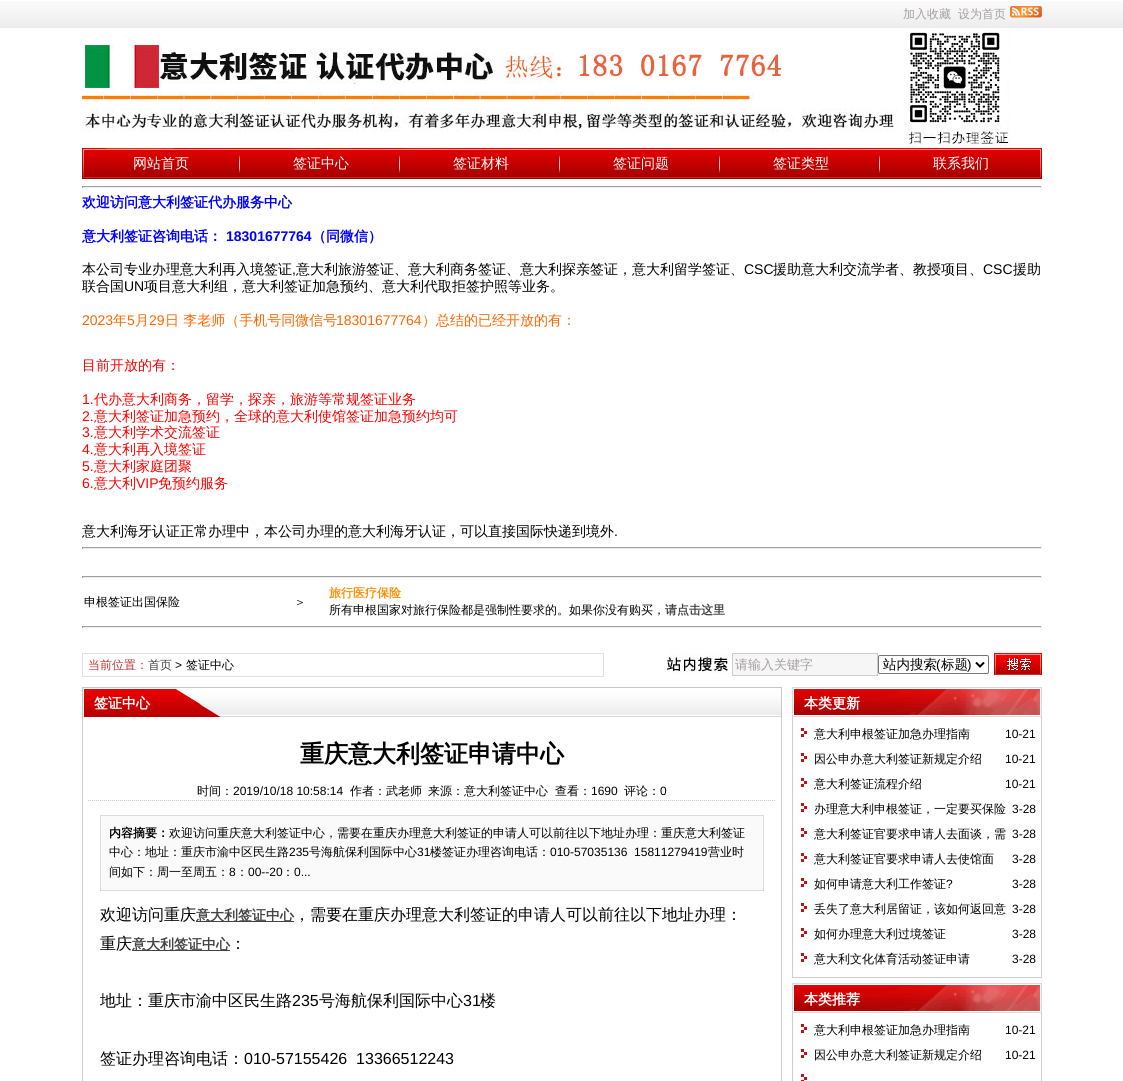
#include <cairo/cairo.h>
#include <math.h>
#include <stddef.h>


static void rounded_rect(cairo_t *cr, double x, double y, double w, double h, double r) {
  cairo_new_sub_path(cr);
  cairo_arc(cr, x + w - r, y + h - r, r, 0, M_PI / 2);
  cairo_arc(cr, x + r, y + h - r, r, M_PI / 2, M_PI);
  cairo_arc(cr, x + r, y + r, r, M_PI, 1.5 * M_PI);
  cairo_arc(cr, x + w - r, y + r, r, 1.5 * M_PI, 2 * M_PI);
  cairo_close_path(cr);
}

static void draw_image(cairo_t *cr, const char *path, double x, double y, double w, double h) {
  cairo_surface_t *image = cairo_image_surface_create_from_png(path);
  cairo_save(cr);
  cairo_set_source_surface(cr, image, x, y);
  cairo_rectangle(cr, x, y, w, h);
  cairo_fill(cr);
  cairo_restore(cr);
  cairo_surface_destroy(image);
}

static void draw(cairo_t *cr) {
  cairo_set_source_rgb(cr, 1, 1, 1);
  cairo_paint(cr);
  draw_image(cr, "images/1.png", 0, 1, 1123, 27);
  draw_image(cr, "images/2.png", 1010, 6, 32, 12);
  draw_image(cr, "images/3.png", 82, 28, 928, 120);
  draw_image(cr, "images/4.png", 82, 148, 960, 31);
  draw_image(cr, "images/5.png", 239, 156, 1, 17);
  draw_image(cr, "images/6.png", 399, 148, 1, 25);
  draw_image(cr, "images/5.png", 559, 156, 1, 17);
  draw_image(cr, "images/5.png", 719, 156, 1, 17);
  draw_image(cr, "images/5.png", 879, 156, 1, 17);
  cairo_set_source_rgb(cr, 159 / 255.0, 159 / 255.0, 159 / 255.0);
  cairo_rectangle(cr, 82, 186, 960, 1);
  cairo_fill(cr);
  cairo_set_source_rgb(cr, 238 / 255.0, 238 / 255.0, 238 / 255.0);
  cairo_rectangle(cr, 1041, 186, 1, 2);
  cairo_fill(cr);
  cairo_rectangle(cr, 82, 187, 960, 1);
  cairo_fill(cr);
  cairo_set_source_rgb(cr, 159 / 255.0, 159 / 255.0, 159 / 255.0);
  cairo_rectangle(cr, 82, 186, 1, 2);
  cairo_fill(cr);
  cairo_rectangle(cr, 82, 547, 960, 1);
  cairo_fill(cr);
  cairo_set_source_rgb(cr, 238 / 255.0, 238 / 255.0, 238 / 255.0);
  cairo_rectangle(cr, 1041, 547, 1, 2);
  cairo_fill(cr);
  cairo_rectangle(cr, 82, 548, 960, 1);
  cairo_fill(cr);
  cairo_set_source_rgb(cr, 159 / 255.0, 159 / 255.0, 159 / 255.0);
  cairo_rectangle(cr, 82, 547, 1, 2);
  cairo_fill(cr);
  cairo_rectangle(cr, 82, 576, 960, 1);
  cairo_fill(cr);
  cairo_set_source_rgb(cr, 238 / 255.0, 238 / 255.0, 238 / 255.0);
  cairo_rectangle(cr, 1041, 576, 1, 2);
  cairo_fill(cr);
  cairo_rectangle(cr, 82, 577, 960, 1);
  cairo_fill(cr);
  cairo_set_source_rgb(cr, 159 / 255.0, 159 / 255.0, 159 / 255.0);
  cairo_rectangle(cr, 82, 576, 1, 2);
  cairo_fill(cr);
  cairo_rectangle(cr, 82, 626, 960, 1);
  cairo_fill(cr);
  cairo_set_source_rgb(cr, 238 / 255.0, 238 / 255.0, 238 / 255.0);
  cairo_rectangle(cr, 1041, 626, 1, 2);
  cairo_fill(cr);
  cairo_rectangle(cr, 82, 627, 960, 1);
  cairo_fill(cr);
  cairo_set_source_rgb(cr, 159 / 255.0, 159 / 255.0, 159 / 255.0);
  cairo_rectangle(cr, 82, 626, 1, 2);
  cairo_fill(cr);
  cairo_rectangle(cr, 82.5, 653.5, 521, 23);
  cairo_set_source_rgb(cr, 224 / 255.0, 224 / 255.0, 224 / 255.0);
  cairo_set_line_width(cr, 1);
  cairo_stroke(cr);
  draw_image(cr, "images/7.png", 667, 653, 63, 21);
  cairo_set_source_rgb(cr, 246 / 255.0, 246 / 255.0, 246 / 255.0);
  cairo_rectangle(cr, 732.5, 653.5, 145, 22);
  cairo_fill_preserve(cr);
  cairo_set_source_rgb(cr, 204 / 255.0, 204 / 255.0, 204 / 255.0);
  cairo_stroke(cr);
  rounded_rect(cr, 878.5, 655.5, 110, 18, 1.5);
  cairo_set_source_rgb(cr, 118 / 255.0, 118 / 255.0, 118 / 255.0);
  cairo_stroke(cr);
  cairo_new_path(cr);
  cairo_move_to(cr, 976, 662.5);
  cairo_line_to(cr, 980, 666.5);
  cairo_line_to(cr, 984, 662.5);
  cairo_set_source_rgb(cr, 0, 0, 0);
  cairo_set_line_width(cr, 2);
  cairo_stroke(cr);
  draw_image(cr, "images/8.png", 994, 653, 48, 22);
  draw_image(cr, "images/9.png", 82, 687, 700, 30);
  cairo_set_source_rgb(cr, 206 / 255.0, 206 / 255.0, 206 / 255.0);
  cairo_rectangle(cr, 781, 717, 1, 364);
  cairo_fill(cr);
  cairo_rectangle(cr, 82, 717, 1, 364);
  cairo_fill(cr);
  cairo_new_path(cr);
  cairo_move_to(cr, 88, 800.5);
  cairo_line_to(cr, 776, 800.5);
  cairo_set_source_rgb(cr, 204 / 255.0, 204 / 255.0, 204 / 255.0);
  cairo_set_line_width(cr, 1);
  cairo_set_dash(cr, (double[]){1, 1}, 2, 0);
  cairo_stroke(cr);
  cairo_set_source_rgb(cr, 250 / 255.0, 250 / 255.0, 250 / 255.0);
  cairo_rectangle(cr, 100.5, 815.5, 663, 75);
  cairo_fill_preserve(cr);
  cairo_set_source_rgb(cr, 220 / 255.0, 220 / 255.0, 220 / 255.0);
  cairo_set_dash(cr, NULL, 0, 0);
  cairo_stroke(cr);
  cairo_set_source_rgb(cr, 68 / 255.0, 68 / 255.0, 68 / 255.0);
  cairo_rectangle(cr, 196, 921, 98, 1);
  cairo_fill(cr);
  cairo_rectangle(cr, 132, 950, 98, 1);
  cairo_fill(cr);
  draw_image(cr, "images/10.png", 792, 687, 250, 30);
  cairo_set_source_rgb(cr, 206 / 255.0, 206 / 255.0, 206 / 255.0);
  cairo_rectangle(cr, 1041, 717, 1, 261);
  cairo_fill(cr);
  cairo_rectangle(cr, 792, 977, 250, 1);
  cairo_fill(cr);
  cairo_rectangle(cr, 792, 717, 1, 261);
  cairo_fill(cr);
  draw_image(cr, "images/11.png", 801, 728, 6, 9);
  draw_image(cr, "images/11.png", 801, 753, 6, 9);
  draw_image(cr, "images/11.png", 801, 778, 6, 9);
  draw_image(cr, "images/11.png", 801, 803, 6, 9);
  draw_image(cr, "images/11.png", 801, 828, 6, 9);
  draw_image(cr, "images/11.png", 801, 853, 6, 9);
  draw_image(cr, "images/11.png", 801, 878, 6, 9);
  draw_image(cr, "images/11.png", 801, 903, 6, 9);
  draw_image(cr, "images/11.png", 801, 928, 6, 9);
  draw_image(cr, "images/11.png", 801, 953, 6, 9);
  draw_image(cr, "images/10.png", 792, 983, 250, 30);
  cairo_rectangle(cr, 1041, 1013, 1, 68);
  cairo_fill(cr);
  cairo_rectangle(cr, 792, 1013, 1, 68);
  cairo_fill(cr);
  draw_image(cr, "images/11.png", 801, 1024, 6, 9);
  draw_image(cr, "images/11.png", 801, 1049, 6, 9);
  draw_image(cr, "images/12.png", 801, 1074, 6, 7);
  cairo_select_font_face(cr, "WenQuanYi Zen Hei Medium", CAIRO_FONT_SLANT_NORMAL, CAIRO_FONT_WEIGHT_NORMAL);
  cairo_set_font_size(cr, 12);
  cairo_set_source_rgb(cr, 165 / 255.0, 158 / 255.0, 163 / 255.0);
  cairo_move_to(cr, 903, 18);
  cairo_show_text(cr, "加入收藏");
  cairo_move_to(cr, 958, 18);
  cairo_show_text(cr, "设为首页");
  cairo_set_font_size(cr, 14);
  cairo_set_source_rgb(cr, 1, 1, 1);
  cairo_move_to(cr, 133, 168);
  cairo_show_text(cr, "网站首页");
  cairo_move_to(cr, 293, 168);
  cairo_show_text(cr, "签证中心");
  cairo_move_to(cr, 453, 168);
  cairo_show_text(cr, "签证材料");
  cairo_move_to(cr, 613, 168);
  cairo_show_text(cr, "签证问题");
  cairo_move_to(cr, 773, 168);
  cairo_show_text(cr, "签证类型");
  cairo_move_to(cr, 933, 168);
  cairo_show_text(cr, "联系我们");
  cairo_select_font_face(cr, "WenQuanYi Zen Hei", CAIRO_FONT_SLANT_NORMAL, CAIRO_FONT_WEIGHT_BOLD);
  cairo_set_source_rgb(cr, 0, 0, 1);
  cairo_move_to(cr, 82, 207);
  cairo_show_text(cr, "欢迎访问意大利签证代办服务中心");
  cairo_move_to(cr, 82, 241);
  cairo_show_text(cr, "意大利签证咨询电话：");
  cairo_select_font_face(cr, "Liberation Sans", CAIRO_FONT_SLANT_NORMAL, CAIRO_FONT_WEIGHT_BOLD);
  cairo_move_to(cr, 226, 241);
  cairo_show_text(cr, "18301677764");
  cairo_select_font_face(cr, "WenQuanYi Zen Hei", CAIRO_FONT_SLANT_NORMAL, CAIRO_FONT_WEIGHT_BOLD);
  cairo_move_to(cr, 312, 241);
  cairo_show_text(cr, "（同微信）");
  cairo_select_font_face(cr, "WenQuanYi Zen Hei Medium", CAIRO_FONT_SLANT_NORMAL, CAIRO_FONT_WEIGHT_NORMAL);
  cairo_set_source_rgb(cr, 0, 0, 0);
  cairo_move_to(cr, 82, 274);
  cairo_show_text(cr, "本公司专业办理意大利再入境签证");
  cairo_select_font_face(cr, "Liberation Sans", CAIRO_FONT_SLANT_NORMAL, CAIRO_FONT_WEIGHT_NORMAL);
  cairo_move_to(cr, 292, 274);
  cairo_show_text(cr, ",");
  cairo_select_font_face(cr, "WenQuanYi Zen Hei Medium", CAIRO_FONT_SLANT_NORMAL, CAIRO_FONT_WEIGHT_NORMAL);
  cairo_move_to(cr, 296, 274);
  cairo_show_text(cr, "意大利旅游签证、意大利商务签证、意大利探亲签证，意大利留学签证、");
  cairo_select_font_face(cr, "Liberation Sans", CAIRO_FONT_SLANT_NORMAL, CAIRO_FONT_WEIGHT_NORMAL);
  cairo_move_to(cr, 744, 274);
  cairo_show_text(cr, "CSC");
  cairo_select_font_face(cr, "WenQuanYi Zen Hei Medium", CAIRO_FONT_SLANT_NORMAL, CAIRO_FONT_WEIGHT_NORMAL);
  cairo_move_to(cr, 773, 274);
  cairo_show_text(cr, "援助意大利交流学者、教授项目、");
  cairo_select_font_face(cr, "Liberation Sans", CAIRO_FONT_SLANT_NORMAL, CAIRO_FONT_WEIGHT_NORMAL);
  cairo_move_to(cr, 983, 274);
  cairo_show_text(cr, "CSC");
  cairo_select_font_face(cr, "WenQuanYi Zen Hei Medium", CAIRO_FONT_SLANT_NORMAL, CAIRO_FONT_WEIGHT_NORMAL);
  cairo_move_to(cr, 1013, 274);
  cairo_show_text(cr, "援助");
  cairo_move_to(cr, 82, 291);
  cairo_show_text(cr, "联合国");
  cairo_select_font_face(cr, "Liberation Sans", CAIRO_FONT_SLANT_NORMAL, CAIRO_FONT_WEIGHT_NORMAL);
  cairo_move_to(cr, 124, 291);
  cairo_show_text(cr, "UN");
  cairo_select_font_face(cr, "WenQuanYi Zen Hei Medium", CAIRO_FONT_SLANT_NORMAL, CAIRO_FONT_WEIGHT_NORMAL);
  cairo_move_to(cr, 144, 291);
  cairo_show_text(cr, "项目意大利组，意大利签证加急预约、意大利代取拒签护照等业务。");
  cairo_select_font_face(cr, "Liberation Sans", CAIRO_FONT_SLANT_NORMAL, CAIRO_FONT_WEIGHT_NORMAL);
  cairo_set_source_rgb(cr, 1, 102 / 255.0, 0);
  cairo_move_to(cr, 82, 325);
  cairo_show_text(cr, "2023");
  cairo_select_font_face(cr, "WenQuanYi Zen Hei Medium", CAIRO_FONT_SLANT_NORMAL, CAIRO_FONT_WEIGHT_NORMAL);
  cairo_move_to(cr, 113, 325);
  cairo_show_text(cr, "年");
  cairo_select_font_face(cr, "Liberation Sans", CAIRO_FONT_SLANT_NORMAL, CAIRO_FONT_WEIGHT_NORMAL);
  cairo_move_to(cr, 127, 325);
  cairo_show_text(cr, "5");
  cairo_select_font_face(cr, "WenQuanYi Zen Hei Medium", CAIRO_FONT_SLANT_NORMAL, CAIRO_FONT_WEIGHT_NORMAL);
  cairo_move_to(cr, 135, 325);
  cairo_show_text(cr, "月");
  cairo_select_font_face(cr, "Liberation Sans", CAIRO_FONT_SLANT_NORMAL, CAIRO_FONT_WEIGHT_NORMAL);
  cairo_move_to(cr, 149, 325);
  cairo_show_text(cr, "29");
  cairo_select_font_face(cr, "WenQuanYi Zen Hei Medium", CAIRO_FONT_SLANT_NORMAL, CAIRO_FONT_WEIGHT_NORMAL);
  cairo_move_to(cr, 165, 325);
  cairo_show_text(cr, "日 李老师（手机号同微信号");
  cairo_select_font_face(cr, "Liberation Sans", CAIRO_FONT_SLANT_NORMAL, CAIRO_FONT_WEIGHT_NORMAL);
  cairo_move_to(cr, 336, 325);
  cairo_show_text(cr, "18301677764");
  cairo_select_font_face(cr, "WenQuanYi Zen Hei Medium", CAIRO_FONT_SLANT_NORMAL, CAIRO_FONT_WEIGHT_NORMAL);
  cairo_move_to(cr, 422, 325);
  cairo_show_text(cr, "）总结的已经开放的有：");
  cairo_set_source_rgb(cr, 1, 0, 0);
  cairo_move_to(cr, 82, 370);
  cairo_show_text(cr, "目前开放的有：");
  cairo_select_font_face(cr, "Liberation Sans", CAIRO_FONT_SLANT_NORMAL, CAIRO_FONT_WEIGHT_NORMAL);
  cairo_move_to(cr, 82, 404);
  cairo_show_text(cr, "1.");
  cairo_select_font_face(cr, "WenQuanYi Zen Hei Medium", CAIRO_FONT_SLANT_NORMAL, CAIRO_FONT_WEIGHT_NORMAL);
  cairo_move_to(cr, 94, 404);
  cairo_show_text(cr, "代办意大利商务，留学，探亲，旅游等常规签证业务");
  cairo_select_font_face(cr, "Liberation Sans", CAIRO_FONT_SLANT_NORMAL, CAIRO_FONT_WEIGHT_NORMAL);
  cairo_move_to(cr, 82, 421);
  cairo_show_text(cr, "2.");
  cairo_select_font_face(cr, "WenQuanYi Zen Hei Medium", CAIRO_FONT_SLANT_NORMAL, CAIRO_FONT_WEIGHT_NORMAL);
  cairo_move_to(cr, 94, 421);
  cairo_show_text(cr, "意大利签证加急预约，全球的意大利使馆签证加急预约均可");
  cairo_select_font_face(cr, "Liberation Sans", CAIRO_FONT_SLANT_NORMAL, CAIRO_FONT_WEIGHT_NORMAL);
  cairo_move_to(cr, 82, 437);
  cairo_show_text(cr, "3.");
  cairo_select_font_face(cr, "WenQuanYi Zen Hei Medium", CAIRO_FONT_SLANT_NORMAL, CAIRO_FONT_WEIGHT_NORMAL);
  cairo_move_to(cr, 94, 437);
  cairo_show_text(cr, "意大利学术交流签证");
  cairo_select_font_face(cr, "Liberation Sans", CAIRO_FONT_SLANT_NORMAL, CAIRO_FONT_WEIGHT_NORMAL);
  cairo_move_to(cr, 82, 454);
  cairo_show_text(cr, "4.");
  cairo_select_font_face(cr, "WenQuanYi Zen Hei Medium", CAIRO_FONT_SLANT_NORMAL, CAIRO_FONT_WEIGHT_NORMAL);
  cairo_move_to(cr, 94, 454);
  cairo_show_text(cr, "意大利再入境签证");
  cairo_select_font_face(cr, "Liberation Sans", CAIRO_FONT_SLANT_NORMAL, CAIRO_FONT_WEIGHT_NORMAL);
  cairo_move_to(cr, 82, 471);
  cairo_show_text(cr, "5.");
  cairo_select_font_face(cr, "WenQuanYi Zen Hei Medium", CAIRO_FONT_SLANT_NORMAL, CAIRO_FONT_WEIGHT_NORMAL);
  cairo_move_to(cr, 94, 471);
  cairo_show_text(cr, "意大利家庭团聚");
  cairo_select_font_face(cr, "Liberation Sans", CAIRO_FONT_SLANT_NORMAL, CAIRO_FONT_WEIGHT_NORMAL);
  cairo_move_to(cr, 82, 488);
  cairo_show_text(cr, "6.");
  cairo_select_font_face(cr, "WenQuanYi Zen Hei Medium", CAIRO_FONT_SLANT_NORMAL, CAIRO_FONT_WEIGHT_NORMAL);
  cairo_move_to(cr, 94, 488);
  cairo_show_text(cr, "意大利");
  cairo_select_font_face(cr, "Liberation Sans", CAIRO_FONT_SLANT_NORMAL, CAIRO_FONT_WEIGHT_NORMAL);
  cairo_move_to(cr, 136, 488);
  cairo_show_text(cr, "VIP");
  cairo_select_font_face(cr, "WenQuanYi Zen Hei Medium", CAIRO_FONT_SLANT_NORMAL, CAIRO_FONT_WEIGHT_NORMAL);
  cairo_move_to(cr, 158, 488);
  cairo_show_text(cr, "免预约服务");
  cairo_set_source_rgb(cr, 0, 0, 0);
  cairo_move_to(cr, 82, 536);
  cairo_show_text(cr, "意大利海牙认证正常办理中，本公司办理的意大利海牙认证，可以直接国际快递到境外");
  cairo_select_font_face(cr, "Liberation Sans", CAIRO_FONT_SLANT_NORMAL, CAIRO_FONT_WEIGHT_NORMAL);
  cairo_move_to(cr, 614, 536);
  cairo_show_text(cr, ".");
  cairo_select_font_face(cr, "WenQuanYi Zen Hei", CAIRO_FONT_SLANT_NORMAL, CAIRO_FONT_WEIGHT_BOLD);
  cairo_set_font_size(cr, 12);
  cairo_set_source_rgb(cr, 1, 140 / 255.0, 0);
  cairo_move_to(cr, 329, 597);
  cairo_show_text(cr, "旅行医疗保险");
  cairo_select_font_face(cr, "WenQuanYi Zen Hei Medium", CAIRO_FONT_SLANT_NORMAL, CAIRO_FONT_WEIGHT_NORMAL);
  cairo_set_source_rgb(cr, 0, 0, 0);
  cairo_move_to(cr, 84, 606);
  cairo_show_text(cr, "申根签证出国保险");
  cairo_move_to(cr, 294, 606);
  cairo_show_text(cr, "＞");
  cairo_move_to(cr, 329, 614);
  cairo_show_text(cr, "所有申根国家对旅行保险都是强制性要求的。如果你没有购买，");
  cairo_select_font_face(cr, "WenQuanYi Zen Hei", CAIRO_FONT_SLANT_NORMAL, CAIRO_FONT_WEIGHT_BOLD);
  cairo_set_source_rgb(cr, 68 / 255.0, 68 / 255.0, 68 / 255.0);
  cairo_move_to(cr, 665, 614);
  cairo_show_text(cr, "请点击这里");
  cairo_select_font_face(cr, "WenQuanYi Zen Hei Medium", CAIRO_FONT_SLANT_NORMAL, CAIRO_FONT_WEIGHT_NORMAL);
  cairo_set_source_rgb(cr, 191 / 255.0, 49 / 255.0, 49 / 255.0);
  cairo_move_to(cr, 88, 669);
  cairo_show_text(cr, "当前位置：");
  cairo_set_source_rgb(cr, 68 / 255.0, 68 / 255.0, 68 / 255.0);
  cairo_move_to(cr, 148, 669);
  cairo_show_text(cr, "首页");
  cairo_select_font_face(cr, "Liberation Sans", CAIRO_FONT_SLANT_NORMAL, CAIRO_FONT_WEIGHT_NORMAL);
  cairo_set_source_rgb(cr, 0, 0, 0);
  cairo_move_to(cr, 175, 669);
  cairo_show_text(cr, ">");
  cairo_select_font_face(cr, "WenQuanYi Zen Hei Medium", CAIRO_FONT_SLANT_NORMAL, CAIRO_FONT_WEIGHT_NORMAL);
  cairo_move_to(cr, 186, 669);
  cairo_show_text(cr, "签证中心");
  cairo_set_font_size(cr, 13);
  cairo_set_source_rgb(cr, 165 / 255.0, 158 / 255.0, 163 / 255.0);
  cairo_move_to(cr, 735, 669);
  cairo_show_text(cr, "请输入关键字");
  cairo_set_font_size(cr, 13.5);
  cairo_set_source_rgb(cr, 0, 0, 0);
  cairo_move_to(cr, 883, 669);
  cairo_show_text(cr, "站内搜索");
  cairo_select_font_face(cr, "Liberation Sans", CAIRO_FONT_SLANT_NORMAL, CAIRO_FONT_WEIGHT_NORMAL);
  cairo_move_to(cr, 936, 669);
  cairo_show_text(cr, "(");
  cairo_select_font_face(cr, "WenQuanYi Zen Hei Medium", CAIRO_FONT_SLANT_NORMAL, CAIRO_FONT_WEIGHT_NORMAL);
  cairo_move_to(cr, 941, 669);
  cairo_show_text(cr, "标题");
  cairo_select_font_face(cr, "Liberation Sans", CAIRO_FONT_SLANT_NORMAL, CAIRO_FONT_WEIGHT_NORMAL);
  cairo_move_to(cr, 967, 669);
  cairo_show_text(cr, ")");
  cairo_select_font_face(cr, "WenQuanYi Zen Hei", CAIRO_FONT_SLANT_NORMAL, CAIRO_FONT_WEIGHT_BOLD);
  cairo_set_font_size(cr, 14);
  cairo_set_source_rgb(cr, 1, 1, 1);
  cairo_move_to(cr, 94, 708);
  cairo_show_text(cr, "签证中心");
  cairo_set_font_size(cr, 24);
  cairo_set_source_rgb(cr, 0, 0, 0);
  cairo_move_to(cr, 300, 762);
  cairo_show_text(cr, "重庆意大利签证申请中心");
  cairo_select_font_face(cr, "WenQuanYi Zen Hei Medium", CAIRO_FONT_SLANT_NORMAL, CAIRO_FONT_WEIGHT_NORMAL);
  cairo_set_font_size(cr, 12);
  cairo_move_to(cr, 197, 795);
  cairo_show_text(cr, "时间：");
  cairo_select_font_face(cr, "Liberation Sans", CAIRO_FONT_SLANT_NORMAL, CAIRO_FONT_WEIGHT_NORMAL);
  cairo_move_to(cr, 233, 795);
  cairo_show_text(cr, "2019/10/18 10:58:14");
  cairo_select_font_face(cr, "WenQuanYi Zen Hei Medium", CAIRO_FONT_SLANT_NORMAL, CAIRO_FONT_WEIGHT_NORMAL);
  cairo_move_to(cr, 350, 795);
  cairo_show_text(cr, "作者：武老师");
  cairo_move_to(cr, 428, 795);
  cairo_show_text(cr, "来源：意大利签证中心");
  cairo_move_to(cr, 555, 795);
  cairo_show_text(cr, "查看：");
  cairo_select_font_face(cr, "Liberation Sans", CAIRO_FONT_SLANT_NORMAL, CAIRO_FONT_WEIGHT_NORMAL);
  cairo_move_to(cr, 591, 795);
  cairo_show_text(cr, "1690");
  cairo_select_font_face(cr, "WenQuanYi Zen Hei Medium", CAIRO_FONT_SLANT_NORMAL, CAIRO_FONT_WEIGHT_NORMAL);
  cairo_move_to(cr, 624, 795);
  cairo_show_text(cr, "评论：");
  cairo_select_font_face(cr, "Liberation Sans", CAIRO_FONT_SLANT_NORMAL, CAIRO_FONT_WEIGHT_NORMAL);
  cairo_move_to(cr, 660, 795);
  cairo_show_text(cr, "0");
  cairo_select_font_face(cr, "WenQuanYi Zen Hei", CAIRO_FONT_SLANT_NORMAL, CAIRO_FONT_WEIGHT_BOLD);
  cairo_move_to(cr, 109, 837);
  cairo_show_text(cr, "内容摘要：");
  cairo_select_font_face(cr, "WenQuanYi Zen Hei Medium", CAIRO_FONT_SLANT_NORMAL, CAIRO_FONT_WEIGHT_NORMAL);
  cairo_move_to(cr, 169, 837);
  cairo_show_text(cr, "欢迎访问重庆意大利签证中心，需要在重庆办理意大利签证的申请人可以前往以下地址办理：重庆意大利签证");
  cairo_move_to(cr, 109, 856);
  cairo_show_text(cr, "中心：地址：重庆市渝中区民生路");
  cairo_select_font_face(cr, "Liberation Sans", CAIRO_FONT_SLANT_NORMAL, CAIRO_FONT_WEIGHT_NORMAL);
  cairo_move_to(cr, 289, 856);
  cairo_show_text(cr, "235");
  cairo_select_font_face(cr, "WenQuanYi Zen Hei Medium", CAIRO_FONT_SLANT_NORMAL, CAIRO_FONT_WEIGHT_NORMAL);
  cairo_move_to(cr, 309, 856);
  cairo_show_text(cr, "号海航保利国际中心");
  cairo_select_font_face(cr, "Liberation Sans", CAIRO_FONT_SLANT_NORMAL, CAIRO_FONT_WEIGHT_NORMAL);
  cairo_move_to(cr, 417, 856);
  cairo_show_text(cr, "31");
  cairo_select_font_face(cr, "WenQuanYi Zen Hei Medium", CAIRO_FONT_SLANT_NORMAL, CAIRO_FONT_WEIGHT_NORMAL);
  cairo_move_to(cr, 430, 856);
  cairo_show_text(cr, "楼签证办理咨询电话：");
  cairo_select_font_face(cr, "Liberation Sans", CAIRO_FONT_SLANT_NORMAL, CAIRO_FONT_WEIGHT_NORMAL);
  cairo_move_to(cr, 550, 856);
  cairo_show_text(cr, "010-57035136  15811279419");
  cairo_select_font_face(cr, "WenQuanYi Zen Hei Medium", CAIRO_FONT_SLANT_NORMAL, CAIRO_FONT_WEIGHT_NORMAL);
  cairo_move_to(cr, 708, 856);
  cairo_show_text(cr, "营业时");
  cairo_move_to(cr, 109, 876);
  cairo_show_text(cr, "间如下：周一至周五：");
  cairo_select_font_face(cr, "Liberation Sans", CAIRO_FONT_SLANT_NORMAL, CAIRO_FONT_WEIGHT_NORMAL);
  cairo_move_to(cr, 229, 876);
  cairo_show_text(cr, "8");
  cairo_select_font_face(cr, "WenQuanYi Zen Hei Medium", CAIRO_FONT_SLANT_NORMAL, CAIRO_FONT_WEIGHT_NORMAL);
  cairo_move_to(cr, 236, 876);
  cairo_show_text(cr, "：");
  cairo_select_font_face(cr, "Liberation Sans", CAIRO_FONT_SLANT_NORMAL, CAIRO_FONT_WEIGHT_NORMAL);
  cairo_move_to(cr, 248, 876);
  cairo_show_text(cr, "00--20");
  cairo_select_font_face(cr, "WenQuanYi Zen Hei Medium", CAIRO_FONT_SLANT_NORMAL, CAIRO_FONT_WEIGHT_NORMAL);
  cairo_move_to(cr, 282, 876);
  cairo_show_text(cr, "：");
  cairo_select_font_face(cr, "Liberation Sans", CAIRO_FONT_SLANT_NORMAL, CAIRO_FONT_WEIGHT_NORMAL);
  cairo_move_to(cr, 294, 876);
  cairo_show_text(cr, "0...");
  cairo_select_font_face(cr, "WenQuanYi Zen Hei Medium", CAIRO_FONT_SLANT_NORMAL, CAIRO_FONT_WEIGHT_NORMAL);
  cairo_set_font_size(cr, 16);
  cairo_move_to(cr, 100, 920);
  cairo_show_text(cr, "欢迎访问重庆");
  cairo_select_font_face(cr, "WenQuanYi Zen Hei", CAIRO_FONT_SLANT_NORMAL, CAIRO_FONT_WEIGHT_BOLD);
  cairo_set_font_size(cr, 14);
  cairo_set_source_rgb(cr, 68 / 255.0, 68 / 255.0, 68 / 255.0);
  cairo_move_to(cr, 196, 920);
  cairo_show_text(cr, "意大利签证中心");
  cairo_select_font_face(cr, "WenQuanYi Zen Hei Medium", CAIRO_FONT_SLANT_NORMAL, CAIRO_FONT_WEIGHT_NORMAL);
  cairo_set_font_size(cr, 16);
  cairo_set_source_rgb(cr, 0, 0, 0);
  cairo_move_to(cr, 294, 920);
  cairo_show_text(cr, "，需要在重庆办理意大利签证的申请人可以前往以下地址办理：");
  cairo_move_to(cr, 100, 949);
  cairo_show_text(cr, "重庆");
  cairo_select_font_face(cr, "WenQuanYi Zen Hei", CAIRO_FONT_SLANT_NORMAL, CAIRO_FONT_WEIGHT_BOLD);
  cairo_set_font_size(cr, 14);
  cairo_set_source_rgb(cr, 68 / 255.0, 68 / 255.0, 68 / 255.0);
  cairo_move_to(cr, 132, 949);
  cairo_show_text(cr, "意大利签证中心");
  cairo_select_font_face(cr, "WenQuanYi Zen Hei Medium", CAIRO_FONT_SLANT_NORMAL, CAIRO_FONT_WEIGHT_NORMAL);
  cairo_set_font_size(cr, 16);
  cairo_set_source_rgb(cr, 0, 0, 0);
  cairo_move_to(cr, 230, 949);
  cairo_show_text(cr, "：");
  cairo_move_to(cr, 100, 1006);
  cairo_show_text(cr, "地址：重庆市渝中区民生路");
  cairo_select_font_face(cr, "Liberation Sans", CAIRO_FONT_SLANT_NORMAL, CAIRO_FONT_WEIGHT_NORMAL);
  cairo_move_to(cr, 292, 1006);
  cairo_show_text(cr, "235");
  cairo_select_font_face(cr, "WenQuanYi Zen Hei Medium", CAIRO_FONT_SLANT_NORMAL, CAIRO_FONT_WEIGHT_NORMAL);
  cairo_move_to(cr, 319, 1006);
  cairo_show_text(cr, "号海航保利国际中心");
  cairo_select_font_face(cr, "Liberation Sans", CAIRO_FONT_SLANT_NORMAL, CAIRO_FONT_WEIGHT_NORMAL);
  cairo_move_to(cr, 463, 1006);
  cairo_show_text(cr, "31");
  cairo_select_font_face(cr, "WenQuanYi Zen Hei Medium", CAIRO_FONT_SLANT_NORMAL, CAIRO_FONT_WEIGHT_NORMAL);
  cairo_move_to(cr, 480, 1006);
  cairo_show_text(cr, "楼");
  cairo_move_to(cr, 100, 1064);
  cairo_show_text(cr, "签证办理咨询电话：");
  cairo_select_font_face(cr, "Liberation Sans", CAIRO_FONT_SLANT_NORMAL, CAIRO_FONT_WEIGHT_NORMAL);
  cairo_move_to(cr, 244, 1064);
  cairo_show_text(cr, "010-57155426  13366512243");
  cairo_select_font_face(cr, "WenQuanYi Zen Hei", CAIRO_FONT_SLANT_NORMAL, CAIRO_FONT_WEIGHT_BOLD);
  cairo_set_font_size(cr, 14);
  cairo_set_source_rgb(cr, 1, 1, 1);
  cairo_move_to(cr, 804, 708);
  cairo_show_text(cr, "本类更新");
  cairo_select_font_face(cr, "WenQuanYi Zen Hei Medium", CAIRO_FONT_SLANT_NORMAL, CAIRO_FONT_WEIGHT_NORMAL);
  cairo_set_font_size(cr, 12);
  cairo_set_source_rgb(cr, 0, 0, 0);
  cairo_move_to(cr, 814, 738);
  cairo_show_text(cr, "意大利申根签证加急办理指南");
  cairo_select_font_face(cr, "Liberation Sans", CAIRO_FONT_SLANT_NORMAL, CAIRO_FONT_WEIGHT_NORMAL);
  cairo_move_to(cr, 1005, 738);
  cairo_show_text(cr, "10-21");
  cairo_select_font_face(cr, "WenQuanYi Zen Hei Medium", CAIRO_FONT_SLANT_NORMAL, CAIRO_FONT_WEIGHT_NORMAL);
  cairo_move_to(cr, 814, 763);
  cairo_show_text(cr, "因公申办意大利签证新规定介绍");
  cairo_select_font_face(cr, "Liberation Sans", CAIRO_FONT_SLANT_NORMAL, CAIRO_FONT_WEIGHT_NORMAL);
  cairo_move_to(cr, 1005, 763);
  cairo_show_text(cr, "10-21");
  cairo_select_font_face(cr, "WenQuanYi Zen Hei Medium", CAIRO_FONT_SLANT_NORMAL, CAIRO_FONT_WEIGHT_NORMAL);
  cairo_move_to(cr, 814, 788);
  cairo_show_text(cr, "意大利签证流程介绍");
  cairo_select_font_face(cr, "Liberation Sans", CAIRO_FONT_SLANT_NORMAL, CAIRO_FONT_WEIGHT_NORMAL);
  cairo_move_to(cr, 1005, 788);
  cairo_show_text(cr, "10-21");
  cairo_select_font_face(cr, "WenQuanYi Zen Hei Medium", CAIRO_FONT_SLANT_NORMAL, CAIRO_FONT_WEIGHT_NORMAL);
  cairo_move_to(cr, 814, 813);
  cairo_show_text(cr, "办理意大利申根签证，一定要买保险");
  cairo_select_font_face(cr, "Liberation Sans", CAIRO_FONT_SLANT_NORMAL, CAIRO_FONT_WEIGHT_NORMAL);
  cairo_move_to(cr, 1012, 813);
  cairo_show_text(cr, "3-28");
  cairo_select_font_face(cr, "WenQuanYi Zen Hei Medium", CAIRO_FONT_SLANT_NORMAL, CAIRO_FONT_WEIGHT_NORMAL);
  cairo_move_to(cr, 814, 838);
  cairo_show_text(cr, "意大利签证官要求申请人去面谈，需");
  cairo_select_font_face(cr, "Liberation Sans", CAIRO_FONT_SLANT_NORMAL, CAIRO_FONT_WEIGHT_NORMAL);
  cairo_move_to(cr, 1012, 838);
  cairo_show_text(cr, "3-28");
  cairo_select_font_face(cr, "WenQuanYi Zen Hei Medium", CAIRO_FONT_SLANT_NORMAL, CAIRO_FONT_WEIGHT_NORMAL);
  cairo_move_to(cr, 814, 863);
  cairo_show_text(cr, "意大利签证官要求申请人去使馆面");
  cairo_select_font_face(cr, "Liberation Sans", CAIRO_FONT_SLANT_NORMAL, CAIRO_FONT_WEIGHT_NORMAL);
  cairo_move_to(cr, 1012, 863);
  cairo_show_text(cr, "3-28");
  cairo_select_font_face(cr, "WenQuanYi Zen Hei Medium", CAIRO_FONT_SLANT_NORMAL, CAIRO_FONT_WEIGHT_NORMAL);
  cairo_move_to(cr, 814, 888);
  cairo_show_text(cr, "如何申请意大利工作签证");
  cairo_select_font_face(cr, "Liberation Sans", CAIRO_FONT_SLANT_NORMAL, CAIRO_FONT_WEIGHT_NORMAL);
  cairo_move_to(cr, 946, 888);
  cairo_show_text(cr, "?");
  cairo_move_to(cr, 1012, 888);
  cairo_show_text(cr, "3-28");
  cairo_select_font_face(cr, "WenQuanYi Zen Hei Medium", CAIRO_FONT_SLANT_NORMAL, CAIRO_FONT_WEIGHT_NORMAL);
  cairo_move_to(cr, 814, 913);
  cairo_show_text(cr, "丢失了意大利居留证，该如何返回意");
  cairo_select_font_face(cr, "Liberation Sans", CAIRO_FONT_SLANT_NORMAL, CAIRO_FONT_WEIGHT_NORMAL);
  cairo_move_to(cr, 1012, 913);
  cairo_show_text(cr, "3-28");
  cairo_select_font_face(cr, "WenQuanYi Zen Hei Medium", CAIRO_FONT_SLANT_NORMAL, CAIRO_FONT_WEIGHT_NORMAL);
  cairo_move_to(cr, 814, 938);
  cairo_show_text(cr, "如何办理意大利过境签证");
  cairo_select_font_face(cr, "Liberation Sans", CAIRO_FONT_SLANT_NORMAL, CAIRO_FONT_WEIGHT_NORMAL);
  cairo_move_to(cr, 1012, 938);
  cairo_show_text(cr, "3-28");
  cairo_select_font_face(cr, "WenQuanYi Zen Hei Medium", CAIRO_FONT_SLANT_NORMAL, CAIRO_FONT_WEIGHT_NORMAL);
  cairo_move_to(cr, 814, 963);
  cairo_show_text(cr, "意大利文化体育活动签证申请");
  cairo_select_font_face(cr, "Liberation Sans", CAIRO_FONT_SLANT_NORMAL, CAIRO_FONT_WEIGHT_NORMAL);
  cairo_move_to(cr, 1012, 963);
  cairo_show_text(cr, "3-28");
  cairo_select_font_face(cr, "WenQuanYi Zen Hei", CAIRO_FONT_SLANT_NORMAL, CAIRO_FONT_WEIGHT_BOLD);
  cairo_set_font_size(cr, 14);
  cairo_set_source_rgb(cr, 1, 1, 1);
  cairo_move_to(cr, 804, 1004);
  cairo_show_text(cr, "本类推荐");
  cairo_select_font_face(cr, "WenQuanYi Zen Hei Medium", CAIRO_FONT_SLANT_NORMAL, CAIRO_FONT_WEIGHT_NORMAL);
  cairo_set_font_size(cr, 12);
  cairo_set_source_rgb(cr, 0, 0, 0);
  cairo_move_to(cr, 814, 1034);
  cairo_show_text(cr, "意大利申根签证加急办理指南");
  cairo_select_font_face(cr, "Liberation Sans", CAIRO_FONT_SLANT_NORMAL, CAIRO_FONT_WEIGHT_NORMAL);
  cairo_move_to(cr, 1005, 1034);
  cairo_show_text(cr, "10-21");
  cairo_select_font_face(cr, "WenQuanYi Zen Hei Medium", CAIRO_FONT_SLANT_NORMAL, CAIRO_FONT_WEIGHT_NORMAL);
  cairo_move_to(cr, 814, 1059);
  cairo_show_text(cr, "因公申办意大利签证新规定介绍");
  cairo_select_font_face(cr, "Liberation Sans", CAIRO_FONT_SLANT_NORMAL, CAIRO_FONT_WEIGHT_NORMAL);
  cairo_move_to(cr, 1005, 1059);
  cairo_show_text(cr, "10-21");
}

int main(void) {
  cairo_surface_t *surface = cairo_image_surface_create(CAIRO_FORMAT_RGB24, 1123, 1081);
  cairo_t *cr = cairo_create(surface);
  cairo_font_options_t *options = cairo_font_options_create();
  cairo_font_options_set_hint_metrics(options, CAIRO_HINT_METRICS_OFF);
  cairo_font_options_set_hint_style(options, CAIRO_HINT_STYLE_NONE);
  cairo_set_font_options(cr, options);
  cairo_set_miter_limit(cr, 4);
  draw(cr);
  cairo_surface_write_to_png(surface, "out.png");
  cairo_font_options_destroy(options);
  cairo_destroy(cr);
  cairo_surface_destroy(surface);
  return 0;
}
